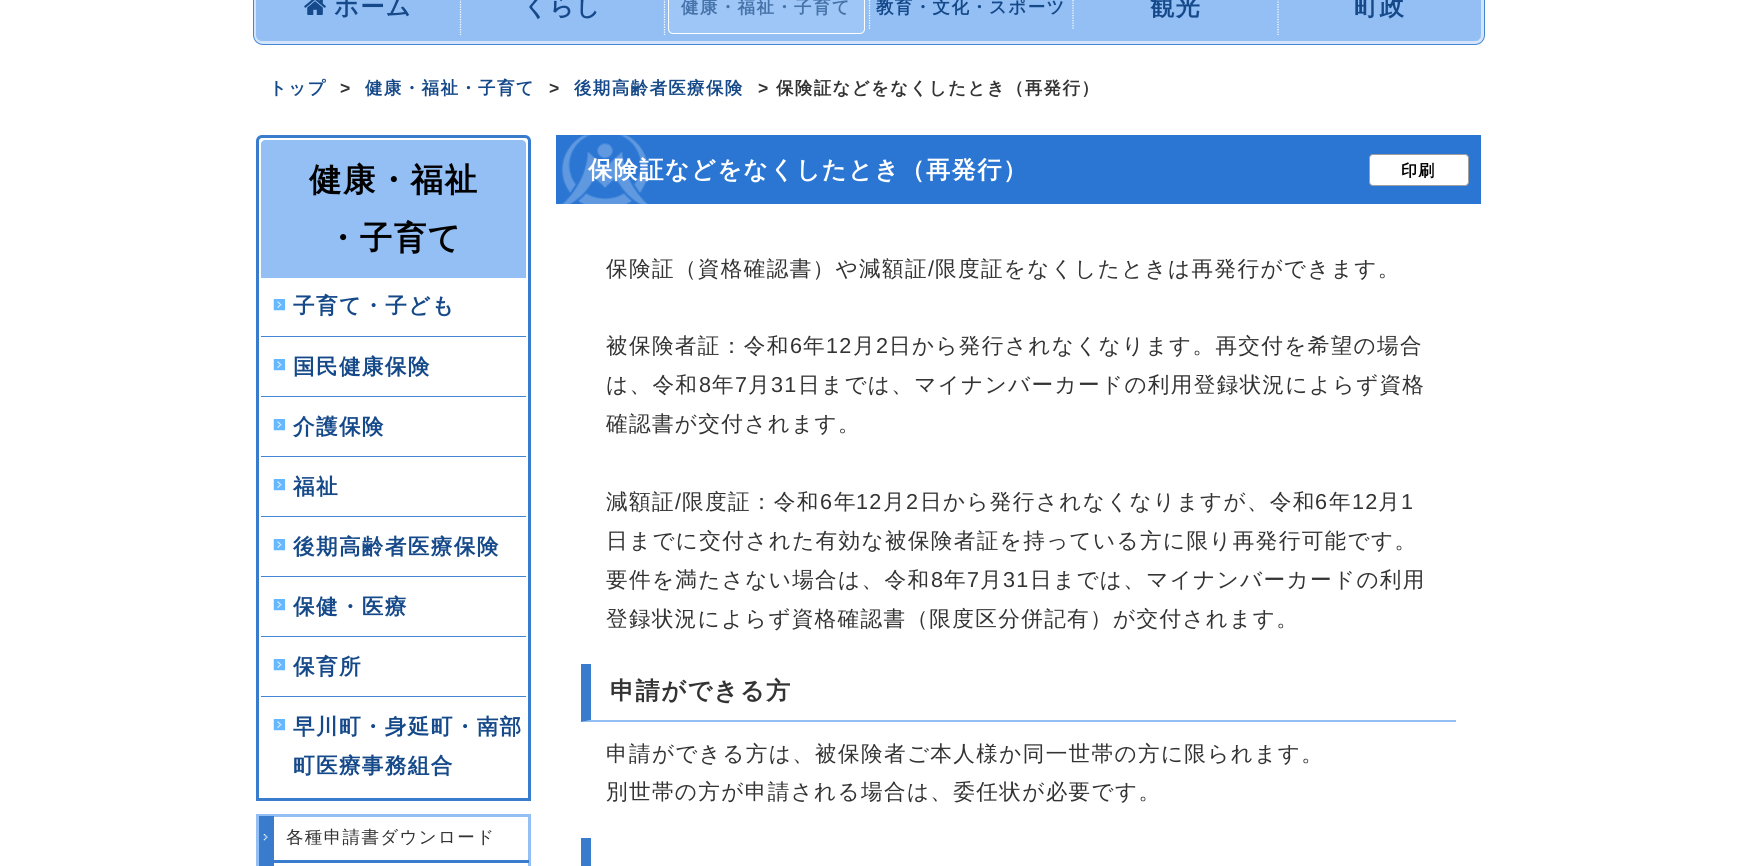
#include <cairo/cairo.h>
#include <math.h>
#include <stddef.h>


static void draw_spaced(cairo_t *cr, double x, double y, const char *s, double letter, double word) {
  cairo_move_to(cr, x, y);
  while (*s) {
    char ch[5] = {0};
    int n = 0;
    do ch[n++] = *s++; while ((*s & 0xC0) == 0x80);
    cairo_show_text(cr, ch);
    cairo_rel_move_to(cr, letter + word * (*ch == ' '), 0);
  }
}

static void rounded_rect(cairo_t *cr, double x, double y, double w, double h, double r) {
  cairo_new_sub_path(cr);
  cairo_arc(cr, x + w - r, y + h - r, r, 0, M_PI / 2);
  cairo_arc(cr, x + r, y + h - r, r, M_PI / 2, M_PI);
  cairo_arc(cr, x + r, y + r, r, M_PI, 1.5 * M_PI);
  cairo_arc(cr, x + w - r, y + r, r, 1.5 * M_PI, 2 * M_PI);
  cairo_close_path(cr);
}

static void draw_image(cairo_t *cr, const char *path, double x, double y, double w, double h) {
  cairo_surface_t *image = cairo_image_surface_create_from_png(path);
  cairo_save(cr);
  cairo_set_source_surface(cr, image, x, y);
  cairo_rectangle(cr, x, y, w, h);
  cairo_fill(cr);
  cairo_restore(cr);
  cairo_surface_destroy(image);
}

static void draw(cairo_t *cr) {
  cairo_set_source_rgb(cr, 1, 1, 1);
  cairo_paint(cr);
  rounded_rect(cr, 255, -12, 1228, 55, 8);
  cairo_set_source_rgb(cr, 68 / 255.0, 134 / 255.0, 214 / 255.0);
  cairo_set_line_width(cr, 4);
  cairo_stroke(cr);
  rounded_rect(cr, 255.5, -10.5, 1227, 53, 7.5);
  cairo_set_source_rgb(cr, 212 / 255.0, 229 / 255.0, 251 / 255.0);
  cairo_set_line_width(cr, 3);
  cairo_stroke(cr);
  cairo_set_source_rgb(cr, 147 / 255.0, 191 / 255.0, 245 / 255.0);
  rounded_rect(cr, 256, -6, 1225, 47, 6);
  cairo_fill(cr);
  cairo_new_path(cr);
  cairo_move_to(cr, 460.5, -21);
  cairo_line_to(cr, 460.5, 35);
  cairo_set_source_rgb(cr, 1, 1, 1);
  cairo_set_line_width(cr, 1.2);
  cairo_set_dash(cr, (double[]){1.25, 1.25}, 2, 0);
  cairo_stroke(cr);
  draw_image(cr, "images/1.png", 304, 0, 22, 15);
  cairo_new_path(cr);
  cairo_move_to(cr, 664.5, -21);
  cairo_line_to(cr, 664.5, 35);
  cairo_stroke(cr);
  cairo_new_path(cr);
  cairo_move_to(cr, 869.5, -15);
  cairo_line_to(cr, 869.5, 29);
  cairo_stroke(cr);
  cairo_new_path(cr);
  cairo_move_to(cr, 1073, -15);
  cairo_line_to(cr, 1073, 29);
  cairo_stroke(cr);
  cairo_new_path(cr);
  cairo_move_to(cr, 1278, -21);
  cairo_line_to(cr, 1278, 35);
  cairo_stroke(cr);
  cairo_new_path(cr);
  cairo_move_to(cr, 262, 136.5);
  cairo_line_to(cr, 525, 136.5);
  cairo_curve_to(cr, 527.5, 136.5, 529.5, 138.5, 529.5, 141);
  cairo_line_to(cr, 529.5, 799.5);
  cairo_line_to(cr, 257.5, 799.5);
  cairo_line_to(cr, 257.5, 141);
  cairo_curve_to(cr, 257.5, 138.5, 259.5, 136.5, 262, 136.5);
  cairo_close_path(cr);
  cairo_set_source_rgb(cr, 57 / 255.0, 124 / 255.0, 206 / 255.0);
  cairo_set_line_width(cr, 3);
  cairo_set_dash(cr, NULL, 0, 0);
  cairo_stroke(cr);
  cairo_set_source_rgb(cr, 147 / 255.0, 191 / 255.0, 245 / 255.0);
  cairo_new_path(cr);
  cairo_move_to(cr, 265, 140);
  cairo_line_to(cr, 522, 140);
  cairo_curve_to(cr, 524, 140, 526, 142, 526, 144);
  cairo_line_to(cr, 526, 278);
  cairo_line_to(cr, 261, 278);
  cairo_line_to(cr, 261, 144);
  cairo_curve_to(cr, 261, 142, 263, 140, 265, 140);
  cairo_close_path(cr);
  cairo_fill(cr);
  cairo_set_source_rgb(cr, 68 / 255.0, 134 / 255.0, 214 / 255.0);
  cairo_rectangle(cr, 261, 336, 265, 1);
  cairo_fill(cr);
  draw_image(cr, "images/2.png", 273, 299, 12, 12);
  cairo_rectangle(cr, 261, 396, 265, 1);
  cairo_fill(cr);
  draw_image(cr, "images/2.png", 273, 359, 12, 12);
  cairo_rectangle(cr, 261, 456, 265, 1);
  cairo_fill(cr);
  draw_image(cr, "images/2.png", 273, 419, 12, 12);
  cairo_rectangle(cr, 261, 516, 265, 1);
  cairo_fill(cr);
  draw_image(cr, "images/2.png", 273, 479, 12, 12);
  cairo_rectangle(cr, 261, 576, 265, 1);
  cairo_fill(cr);
  draw_image(cr, "images/2.png", 273, 539, 12, 12);
  cairo_rectangle(cr, 261, 636, 265, 1);
  cairo_fill(cr);
  draw_image(cr, "images/2.png", 273, 599, 12, 12);
  cairo_rectangle(cr, 261, 696, 265, 1);
  cairo_fill(cr);
  draw_image(cr, "images/2.png", 273, 659, 12, 12);
  draw_image(cr, "images/2.png", 273, 719, 12, 12);
  cairo_rectangle(cr, 257.5, 815.5, 272, 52);
  cairo_set_source_rgb(cr, 147 / 255.0, 191 / 255.0, 245 / 255.0);
  cairo_stroke(cr);
  cairo_set_source_rgb(cr, 57 / 255.0, 124 / 255.0, 206 / 255.0);
  cairo_rectangle(cr, 274, 860, 255, 3);
  cairo_fill(cr);
  cairo_rectangle(cr, 259, 816, 15, 50);
  cairo_fill(cr);
  draw_image(cr, "images/3.png", 263, 834, 5, 7);
  cairo_set_source_rgb(cr, 43 / 255.0, 118 / 255.0, 211 / 255.0);
  cairo_rectangle(cr, 556, 135, 925, 69);
  cairo_fill(cr);
  draw_image(cr, "images/4.png", 561, 135, 88, 69);
  cairo_set_source_rgb(cr, 1, 1, 1);
  rounded_rect(cr, 1369.5, 154.5, 99, 31, 3.5);
  cairo_fill_preserve(cr);
  cairo_set_source_rgb(cr, 159 / 255.0, 159 / 255.0, 159 / 255.0);
  cairo_set_line_width(cr, 1);
  cairo_stroke(cr);
  cairo_set_source_rgb(cr, 147 / 255.0, 191 / 255.0, 245 / 255.0);
  cairo_new_path(cr);
  cairo_move_to(cr, 1456, 722);
  cairo_line_to(cr, 581, 722);
  cairo_line_to(cr, 591, 720);
  cairo_line_to(cr, 1456, 720);
  cairo_close_path(cr);
  cairo_fill(cr);
  cairo_set_source_rgb(cr, 57 / 255.0, 124 / 255.0, 206 / 255.0);
  cairo_new_path(cr);
  cairo_move_to(cr, 581, 722);
  cairo_line_to(cr, 581, 664);
  cairo_line_to(cr, 591, 664);
  cairo_line_to(cr, 591, 720);
  cairo_close_path(cr);
  cairo_fill(cr);
  cairo_new_path(cr);
  cairo_move_to(cr, 581, 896);
  cairo_line_to(cr, 581, 838);
  cairo_line_to(cr, 591, 838);
  cairo_line_to(cr, 591, 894);
  cairo_close_path(cr);
  cairo_fill(cr);
  cairo_select_font_face(cr, "WenQuanYi Zen Hei", CAIRO_FONT_SLANT_NORMAL, CAIRO_FONT_WEIGHT_BOLD);
  cairo_set_font_size(cr, 24.25);
  cairo_set_source_rgb(cr, 21 / 255.0, 73 / 255.0, 137 / 255.0);
  draw_spaced(cr, 334, 15, "ホーム", 1.35, 0);
  draw_spaced(cr, 523, 15, "くらし", 1.35, 0);
  cairo_set_font_size(cr, 17.5);
  draw_spaced(cr, 681, 13, "健康・福祉・子育て", 1.35, 0);
  cairo_set_source_rgba(cr, 184 / 255.0, 215 / 255.0, 249 / 255.0, 0.3);
  rounded_rect(cr, 668.5, -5.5, 196, 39, 4.5);
  cairo_fill_preserve(cr);
  cairo_set_source_rgb(cr, 1, 1, 1);
  cairo_stroke(cr);
  cairo_set_source_rgb(cr, 21 / 255.0, 73 / 255.0, 137 / 255.0);
  draw_spaced(cr, 876, 13, "教育・文化・スポーツ", 1.35, 0);
  cairo_set_font_size(cr, 24.25);
  draw_spaced(cr, 1150, 15, "観光", 1.35, 0);
  draw_spaced(cr, 1354, 15, "町政", 1.35, 0);
  cairo_set_font_size(cr, 17.5);
  draw_spaced(cr, 269, 94, "トップ", 1.35, 0);
  cairo_select_font_face(cr, "Liberation Sans", CAIRO_FONT_SLANT_NORMAL, CAIRO_FONT_WEIGHT_BOLD);
  cairo_set_source_rgb(cr, 51 / 255.0, 51 / 255.0, 51 / 255.0);
  draw_spaced(cr, 340, 94, ">", 1.35, 0);
  cairo_select_font_face(cr, "WenQuanYi Zen Hei", CAIRO_FONT_SLANT_NORMAL, CAIRO_FONT_WEIGHT_BOLD);
  cairo_set_source_rgb(cr, 21 / 255.0, 73 / 255.0, 137 / 255.0);
  draw_spaced(cr, 365, 94, "健康・福祉・子育て", 1.35, 0);
  cairo_select_font_face(cr, "Liberation Sans", CAIRO_FONT_SLANT_NORMAL, CAIRO_FONT_WEIGHT_BOLD);
  cairo_set_source_rgb(cr, 51 / 255.0, 51 / 255.0, 51 / 255.0);
  draw_spaced(cr, 549, 94, ">", 1.35, 0);
  cairo_select_font_face(cr, "WenQuanYi Zen Hei", CAIRO_FONT_SLANT_NORMAL, CAIRO_FONT_WEIGHT_BOLD);
  cairo_set_source_rgb(cr, 21 / 255.0, 73 / 255.0, 137 / 255.0);
  draw_spaced(cr, 574, 94, "後期高齢者医療保険", 1.35, 0);
  cairo_select_font_face(cr, "Liberation Sans", CAIRO_FONT_SLANT_NORMAL, CAIRO_FONT_WEIGHT_BOLD);
  cairo_set_source_rgb(cr, 51 / 255.0, 51 / 255.0, 51 / 255.0);
  draw_spaced(cr, 758, 94, ">", 1.35, 0);
  cairo_select_font_face(cr, "WenQuanYi Zen Hei", CAIRO_FONT_SLANT_NORMAL, CAIRO_FONT_WEIGHT_BOLD);
  draw_spaced(cr, 776, 94, "保険証などをなくしたとき（再発行）", 1.35, 0);
  cairo_set_font_size(cr, 32.5);
  cairo_set_source_rgb(cr, 0, 0, 0);
  draw_spaced(cr, 309, 191, "健康・福祉", 1.35, 0);
  draw_spaced(cr, 326, 249, "・子育て", 1.35, 0);
  cairo_set_font_size(cr, 21.6);
  cairo_set_source_rgb(cr, 21 / 255.0, 73 / 255.0, 137 / 255.0);
  draw_spaced(cr, 293, 313, "子育て・子ども", 1.35, 0);
  draw_spaced(cr, 293, 374, "国民健康保険", 1.35, 0);
  draw_spaced(cr, 293, 434, "介護保険", 1.35, 0);
  draw_spaced(cr, 293, 494, "福祉", 1.35, 0);
  draw_spaced(cr, 293, 554, "後期高齢者医療保険", 1.35, 0);
  draw_spaced(cr, 293, 614, "保健・医療", 1.35, 0);
  draw_spaced(cr, 293, 674, "保育所", 1.35, 0);
  draw_spaced(cr, 293, 734, "早川町・身延町・南部", 1.35, 0);
  draw_spaced(cr, 293, 773, "町医療事務組合", 1.35, 0);
  cairo_select_font_face(cr, "WenQuanYi Zen Hei Medium", CAIRO_FONT_SLANT_NORMAL, CAIRO_FONT_WEIGHT_NORMAL);
  cairo_set_font_size(cr, 17.5);
  cairo_set_source_rgb(cr, 51 / 255.0, 51 / 255.0, 51 / 255.0);
  draw_spaced(cr, 286, 843, "各種申請書ダウンロード", 1.35, 0);
  cairo_select_font_face(cr, "WenQuanYi Zen Hei", CAIRO_FONT_SLANT_NORMAL, CAIRO_FONT_WEIGHT_BOLD);
  cairo_set_font_size(cr, 24.25);
  cairo_set_source_rgb(cr, 1, 1, 1);
  draw_spaced(cr, 588, 178, "保険証などをなくしたとき（再発行）", 1.35, 0);
  cairo_set_font_size(cr, 16);
  cairo_set_source_rgb(cr, 0, 0, 0);
  draw_spaced(cr, 1401, 176, "印刷", 1.35, 0);
  cairo_select_font_face(cr, "WenQuanYi Zen Hei Medium", CAIRO_FONT_SLANT_NORMAL, CAIRO_FONT_WEIGHT_NORMAL);
  cairo_set_font_size(cr, 21.6);
  cairo_set_source_rgb(cr, 51 / 255.0, 51 / 255.0, 51 / 255.0);
  draw_spaced(cr, 606, 276, "保険証（資格確認書）や減額証", 1.35, 0);
  cairo_select_font_face(cr, "Liberation Sans", CAIRO_FONT_SLANT_NORMAL, CAIRO_FONT_WEIGHT_NORMAL);
  draw_spaced(cr, 928, 276, "/", 1.35, 0);
  cairo_select_font_face(cr, "WenQuanYi Zen Hei Medium", CAIRO_FONT_SLANT_NORMAL, CAIRO_FONT_WEIGHT_NORMAL);
  draw_spaced(cr, 935, 276, "限度証をなくしたときは再発行ができます。", 1.35, 0);
  draw_spaced(cr, 606, 353, "被保険者証：令和", 1.35, 0);
  cairo_select_font_face(cr, "Liberation Sans", CAIRO_FONT_SLANT_NORMAL, CAIRO_FONT_WEIGHT_NORMAL);
  draw_spaced(cr, 790, 353, "6", 1.35, 0);
  cairo_select_font_face(cr, "WenQuanYi Zen Hei Medium", CAIRO_FONT_SLANT_NORMAL, CAIRO_FONT_WEIGHT_NORMAL);
  draw_spaced(cr, 803, 353, "年", 1.35, 0);
  cairo_select_font_face(cr, "Liberation Sans", CAIRO_FONT_SLANT_NORMAL, CAIRO_FONT_WEIGHT_NORMAL);
  draw_spaced(cr, 826, 353, "12", 1.35, 0);
  cairo_select_font_face(cr, "WenQuanYi Zen Hei Medium", CAIRO_FONT_SLANT_NORMAL, CAIRO_FONT_WEIGHT_NORMAL);
  draw_spaced(cr, 853, 353, "月", 1.35, 0);
  cairo_select_font_face(cr, "Liberation Sans", CAIRO_FONT_SLANT_NORMAL, CAIRO_FONT_WEIGHT_NORMAL);
  draw_spaced(cr, 876, 353, "2", 1.35, 0);
  cairo_select_font_face(cr, "WenQuanYi Zen Hei Medium", CAIRO_FONT_SLANT_NORMAL, CAIRO_FONT_WEIGHT_NORMAL);
  draw_spaced(cr, 889, 353, "日から発行されなくなります。再交付を希望の場合", 1.35, 0);
  draw_spaced(cr, 606, 392, "は、令和", 1.35, 0);
  cairo_select_font_face(cr, "Liberation Sans", CAIRO_FONT_SLANT_NORMAL, CAIRO_FONT_WEIGHT_NORMAL);
  draw_spaced(cr, 699, 392, "8", 1.35, 0);
  cairo_select_font_face(cr, "WenQuanYi Zen Hei Medium", CAIRO_FONT_SLANT_NORMAL, CAIRO_FONT_WEIGHT_NORMAL);
  draw_spaced(cr, 712, 392, "年", 1.35, 0);
  cairo_select_font_face(cr, "Liberation Sans", CAIRO_FONT_SLANT_NORMAL, CAIRO_FONT_WEIGHT_NORMAL);
  draw_spaced(cr, 735, 392, "7", 1.35, 0);
  cairo_select_font_face(cr, "WenQuanYi Zen Hei Medium", CAIRO_FONT_SLANT_NORMAL, CAIRO_FONT_WEIGHT_NORMAL);
  draw_spaced(cr, 748, 392, "月", 1.35, 0);
  cairo_select_font_face(cr, "Liberation Sans", CAIRO_FONT_SLANT_NORMAL, CAIRO_FONT_WEIGHT_NORMAL);
  draw_spaced(cr, 771, 392, "31", 1.35, 0);
  cairo_select_font_face(cr, "WenQuanYi Zen Hei Medium", CAIRO_FONT_SLANT_NORMAL, CAIRO_FONT_WEIGHT_NORMAL);
  draw_spaced(cr, 798, 392, "日までは、マイナンバーカードの利用登録状況によらず資格", 1.35, 0);
  draw_spaced(cr, 606, 431, "確認書が交付されます。", 1.35, 0);
  draw_spaced(cr, 606, 509, "減額証", 1.35, 0);
  cairo_select_font_face(cr, "Liberation Sans", CAIRO_FONT_SLANT_NORMAL, CAIRO_FONT_WEIGHT_NORMAL);
  draw_spaced(cr, 675, 509, "/", 1.35, 0);
  cairo_select_font_face(cr, "WenQuanYi Zen Hei Medium", CAIRO_FONT_SLANT_NORMAL, CAIRO_FONT_WEIGHT_NORMAL);
  draw_spaced(cr, 682, 509, "限度証：令和", 1.35, 0);
  cairo_select_font_face(cr, "Liberation Sans", CAIRO_FONT_SLANT_NORMAL, CAIRO_FONT_WEIGHT_NORMAL);
  draw_spaced(cr, 820, 509, "6", 1.35, 0);
  cairo_select_font_face(cr, "WenQuanYi Zen Hei Medium", CAIRO_FONT_SLANT_NORMAL, CAIRO_FONT_WEIGHT_NORMAL);
  draw_spaced(cr, 834, 509, "年", 1.35, 0);
  cairo_select_font_face(cr, "Liberation Sans", CAIRO_FONT_SLANT_NORMAL, CAIRO_FONT_WEIGHT_NORMAL);
  draw_spaced(cr, 856, 509, "12", 1.35, 0);
  cairo_select_font_face(cr, "WenQuanYi Zen Hei Medium", CAIRO_FONT_SLANT_NORMAL, CAIRO_FONT_WEIGHT_NORMAL);
  draw_spaced(cr, 883, 509, "月", 1.35, 0);
  cairo_select_font_face(cr, "Liberation Sans", CAIRO_FONT_SLANT_NORMAL, CAIRO_FONT_WEIGHT_NORMAL);
  draw_spaced(cr, 906, 509, "2", 1.35, 0);
  cairo_select_font_face(cr, "WenQuanYi Zen Hei Medium", CAIRO_FONT_SLANT_NORMAL, CAIRO_FONT_WEIGHT_NORMAL);
  draw_spaced(cr, 920, 509, "日から発行されなくなりますが、令和", 1.35, 0);
  cairo_select_font_face(cr, "Liberation Sans", CAIRO_FONT_SLANT_NORMAL, CAIRO_FONT_WEIGHT_NORMAL);
  draw_spaced(cr, 1315, 509, "6", 1.35, 0);
  cairo_select_font_face(cr, "WenQuanYi Zen Hei Medium", CAIRO_FONT_SLANT_NORMAL, CAIRO_FONT_WEIGHT_NORMAL);
  draw_spaced(cr, 1329, 509, "年", 1.35, 0);
  cairo_select_font_face(cr, "Liberation Sans", CAIRO_FONT_SLANT_NORMAL, CAIRO_FONT_WEIGHT_NORMAL);
  draw_spaced(cr, 1352, 509, "12", 1.35, 0);
  cairo_select_font_face(cr, "WenQuanYi Zen Hei Medium", CAIRO_FONT_SLANT_NORMAL, CAIRO_FONT_WEIGHT_NORMAL);
  draw_spaced(cr, 1378, 509, "月", 1.35, 0);
  cairo_select_font_face(cr, "Liberation Sans", CAIRO_FONT_SLANT_NORMAL, CAIRO_FONT_WEIGHT_NORMAL);
  draw_spaced(cr, 1401, 509, "1", 1.35, 0);
  cairo_select_font_face(cr, "WenQuanYi Zen Hei Medium", CAIRO_FONT_SLANT_NORMAL, CAIRO_FONT_WEIGHT_NORMAL);
  draw_spaced(cr, 606, 548, "日までに交付された有効な被保険者証を持っている方に限り再発行可能です。", 1.35, 0);
  draw_spaced(cr, 606, 587, "要件を満たさない場合は、令和", 1.35, 0);
  cairo_select_font_face(cr, "Liberation Sans", CAIRO_FONT_SLANT_NORMAL, CAIRO_FONT_WEIGHT_NORMAL);
  draw_spaced(cr, 931, 587, "8", 1.35, 0);
  cairo_select_font_face(cr, "WenQuanYi Zen Hei Medium", CAIRO_FONT_SLANT_NORMAL, CAIRO_FONT_WEIGHT_NORMAL);
  draw_spaced(cr, 944, 587, "年", 1.35, 0);
  cairo_select_font_face(cr, "Liberation Sans", CAIRO_FONT_SLANT_NORMAL, CAIRO_FONT_WEIGHT_NORMAL);
  draw_spaced(cr, 967, 587, "7", 1.35, 0);
  cairo_select_font_face(cr, "WenQuanYi Zen Hei Medium", CAIRO_FONT_SLANT_NORMAL, CAIRO_FONT_WEIGHT_NORMAL);
  draw_spaced(cr, 980, 587, "月", 1.35, 0);
  cairo_select_font_face(cr, "Liberation Sans", CAIRO_FONT_SLANT_NORMAL, CAIRO_FONT_WEIGHT_NORMAL);
  draw_spaced(cr, 1003, 587, "31", 1.35, 0);
  cairo_select_font_face(cr, "WenQuanYi Zen Hei Medium", CAIRO_FONT_SLANT_NORMAL, CAIRO_FONT_WEIGHT_NORMAL);
  draw_spaced(cr, 1030, 587, "日までは、マイナンバーカードの利用", 1.35, 0);
  draw_spaced(cr, 606, 626, "登録状況によらず資格確認書（限度区分併記有）が交付されます。", 1.35, 0);
  cairo_select_font_face(cr, "WenQuanYi Zen Hei", CAIRO_FONT_SLANT_NORMAL, CAIRO_FONT_WEIGHT_BOLD);
  cairo_set_font_size(cr, 24.25);
  draw_spaced(cr, 610, 699, "申請ができる方", 1.35, 0);
  cairo_select_font_face(cr, "WenQuanYi Zen Hei Medium", CAIRO_FONT_SLANT_NORMAL, CAIRO_FONT_WEIGHT_NORMAL);
  cairo_set_font_size(cr, 21.6);
  draw_spaced(cr, 606, 761, "申請ができる方は、被保険者ご本人様か同一世帯の方に限られます。", 1.35, 0);
  draw_spaced(cr, 606, 799, "別世帯の方が申請される場合は、委任状が必要です。", 1.35, 0);
}

int main(void) {
  cairo_surface_t *surface = cairo_image_surface_create(CAIRO_FORMAT_RGB24, 1737, 866);
  cairo_t *cr = cairo_create(surface);
  cairo_font_options_t *options = cairo_font_options_create();
  cairo_font_options_set_hint_metrics(options, CAIRO_HINT_METRICS_OFF);
  cairo_font_options_set_hint_style(options, CAIRO_HINT_STYLE_NONE);
  cairo_set_font_options(cr, options);
  cairo_set_miter_limit(cr, 4);
  draw(cr);
  cairo_surface_write_to_png(surface, "out.png");
  cairo_font_options_destroy(options);
  cairo_destroy(cr);
  cairo_surface_destroy(surface);
  return 0;
}
